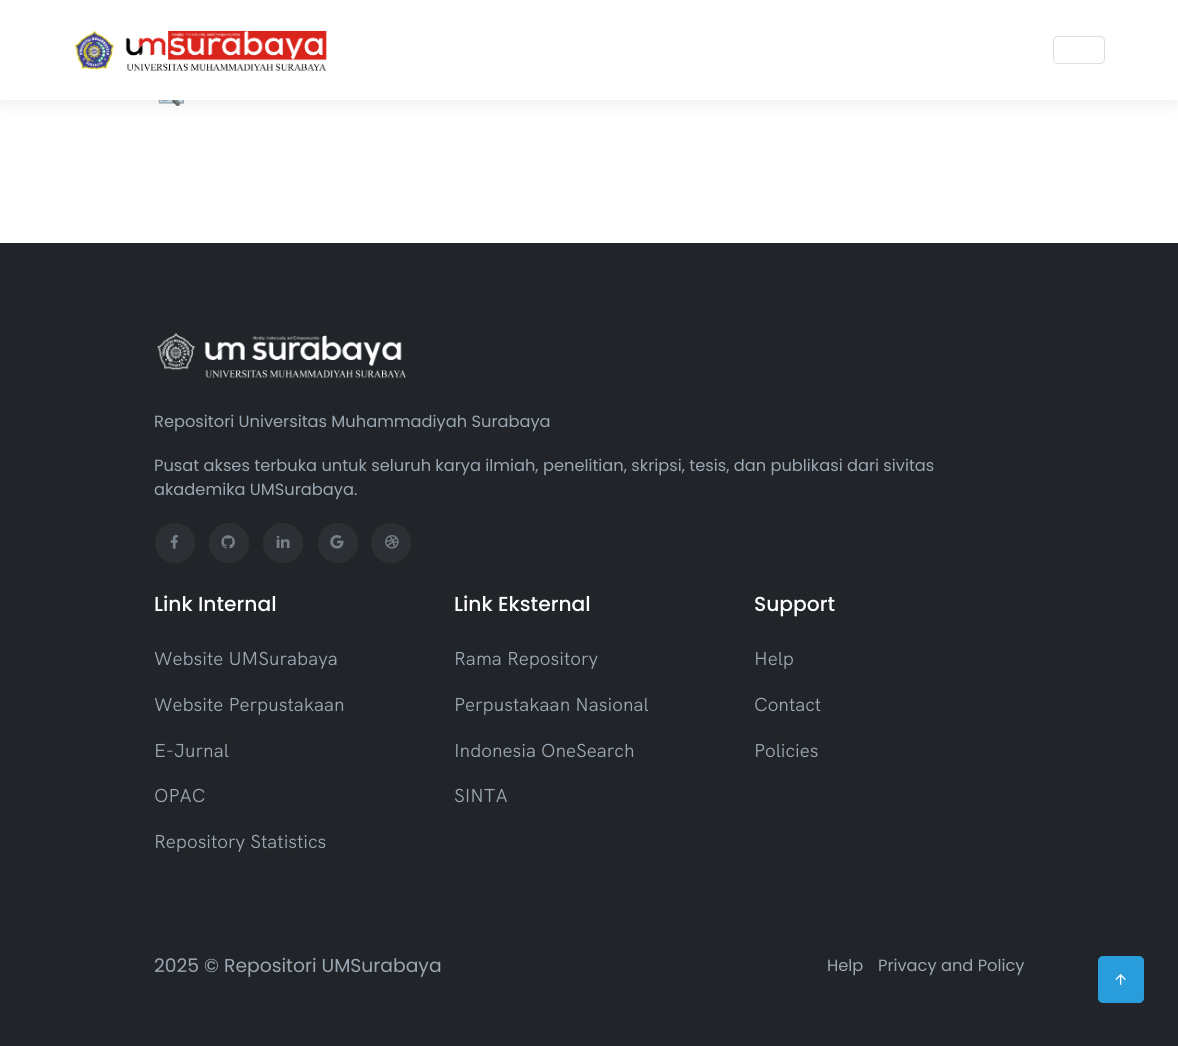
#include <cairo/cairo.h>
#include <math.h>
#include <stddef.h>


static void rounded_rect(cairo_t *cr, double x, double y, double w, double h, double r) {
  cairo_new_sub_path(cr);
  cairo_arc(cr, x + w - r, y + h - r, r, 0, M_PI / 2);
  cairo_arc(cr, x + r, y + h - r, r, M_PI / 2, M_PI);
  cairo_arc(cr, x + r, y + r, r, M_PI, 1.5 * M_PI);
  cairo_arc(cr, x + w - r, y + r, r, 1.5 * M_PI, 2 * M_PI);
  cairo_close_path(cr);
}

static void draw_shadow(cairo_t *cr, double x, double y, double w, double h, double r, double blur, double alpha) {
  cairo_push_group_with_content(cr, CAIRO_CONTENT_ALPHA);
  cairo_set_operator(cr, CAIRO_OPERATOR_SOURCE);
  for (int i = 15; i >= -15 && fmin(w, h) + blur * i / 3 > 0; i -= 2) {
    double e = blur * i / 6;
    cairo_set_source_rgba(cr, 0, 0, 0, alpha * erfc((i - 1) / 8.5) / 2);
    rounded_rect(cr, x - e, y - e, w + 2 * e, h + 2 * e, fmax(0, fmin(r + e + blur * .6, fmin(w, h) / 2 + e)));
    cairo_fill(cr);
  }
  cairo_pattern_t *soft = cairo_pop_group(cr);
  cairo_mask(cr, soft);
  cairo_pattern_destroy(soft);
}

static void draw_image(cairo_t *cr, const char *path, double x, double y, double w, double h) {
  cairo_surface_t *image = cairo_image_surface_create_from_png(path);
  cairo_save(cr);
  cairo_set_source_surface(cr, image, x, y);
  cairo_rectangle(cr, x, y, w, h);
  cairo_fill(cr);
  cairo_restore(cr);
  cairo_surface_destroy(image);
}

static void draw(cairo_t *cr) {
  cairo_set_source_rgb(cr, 1, 1, 1);
  cairo_paint(cr);
  draw_image(cr, "images/2.png", 158, 100, 26, 6);
  cairo_set_source_rgb(cr, 56 / 255.0, 65 / 255.0, 74 / 255.0);
  draw_shadow(cr, 3, 4, 1173, 95, 0, 10, 0.15);
  cairo_set_source_rgb(cr, 1, 1, 1);
  cairo_rectangle(cr, 0, 0, 1178, 100);
  cairo_fill(cr);
  draw_image(cr, "images/1.png", 74, 30, 253, 41);
  rounded_rect(cr, 1053.5, 36.5, 51, 27, 4.5);
  cairo_set_source_rgb(cr, 222 / 255.0, 222 / 255.0, 223 / 255.0);
  cairo_set_line_width(cr, 1);
  cairo_stroke(cr);
  cairo_set_source_rgb(cr, 33 / 255.0, 37 / 255.0, 41 / 255.0);
  cairo_rectangle(cr, 0, 243, 1178, 803);
  cairo_fill(cr);
  draw_image(cr, "images/3.png", 157, 333, 249, 45);
  cairo_set_source_rgb(cr, 44 / 255.0, 48 / 255.0, 52 / 255.0);
  cairo_arc(cr, 175, 543, 20, 0, 2 * M_PI);
  cairo_fill(cr);
  draw_image(cr, "images/4.png", 170, 535, 8, 14);
  cairo_arc(cr, 229, 543, 20, 0, 2 * M_PI);
  cairo_fill(cr);
  draw_image(cr, "images/5.png", 221, 535, 14, 14);
  cairo_arc(cr, 283, 543, 20, 0, 2 * M_PI);
  cairo_fill(cr);
  draw_image(cr, "images/6.png", 276, 535, 14, 13);
  cairo_arc(cr, 338, 543, 20, 0, 2 * M_PI);
  cairo_fill(cr);
  draw_image(cr, "images/7.png", 330, 535, 14, 14);
  cairo_arc(cr, 391, 543, 20, 0, 2 * M_PI);
  cairo_fill(cr);
  draw_image(cr, "images/8.png", 385, 535, 14, 14);
  cairo_set_source_rgb(cr, 41 / 255.0, 156 / 255.0, 219 / 255.0);
  rounded_rect(cr, 1098.5, 956.5, 45, 46, 4.5);
  cairo_fill_preserve(cr);
  cairo_stroke(cr);
  draw_image(cr, "images/9.png", 1115, 974, 11, 11);
  cairo_select_font_face(cr, "Poppins", CAIRO_FONT_SLANT_NORMAL, CAIRO_FONT_WEIGHT_NORMAL);
  cairo_set_font_size(cr, 16.25);
  cairo_set_source_rgb(cr, 155 / 255.0, 167 / 255.0, 179 / 255.0);
  cairo_move_to(cr, 154, 427);
  cairo_show_text(cr, "Repositori Universitas Muhammadiyah Surabaya");
  cairo_move_to(cr, 154, 471);
  cairo_show_text(cr, "Pusat akses terbuka untuk seluruh karya ilmiah, penelitian, skripsi, tesis, dan publikasi dari sivitas");
  cairo_move_to(cr, 154, 495);
  cairo_show_text(cr, "akademika UMSurabaya.");
  cairo_select_font_face(cr, "Poppins Medium", CAIRO_FONT_SLANT_NORMAL, CAIRO_FONT_WEIGHT_NORMAL);
  cairo_set_font_size(cr, 20.25);
  cairo_set_source_rgb(cr, 1, 1, 1);
  cairo_move_to(cr, 154, 611);
  cairo_show_text(cr, "Link Internal");
  cairo_select_font_face(cr, "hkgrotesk", CAIRO_FONT_SLANT_NORMAL, CAIRO_FONT_WEIGHT_NORMAL);
  cairo_set_font_size(cr, 18.75);
  cairo_set_source_rgb(cr, 155 / 255.0, 167 / 255.0, 179 / 255.0);
  cairo_move_to(cr, 154, 665);
  cairo_show_text(cr, "Website UMSurabaya");
  cairo_move_to(cr, 154, 711);
  cairo_show_text(cr, "Website Perpustakaan");
  cairo_move_to(cr, 154, 757);
  cairo_show_text(cr, "E-Jurnal");
  cairo_move_to(cr, 154, 802);
  cairo_show_text(cr, "OPAC");
  cairo_move_to(cr, 154, 848);
  cairo_show_text(cr, "Repository Statistics");
  cairo_select_font_face(cr, "Poppins Medium", CAIRO_FONT_SLANT_NORMAL, CAIRO_FONT_WEIGHT_NORMAL);
  cairo_set_font_size(cr, 20.25);
  cairo_set_source_rgb(cr, 1, 1, 1);
  cairo_move_to(cr, 454, 611);
  cairo_show_text(cr, "Link Eksternal");
  cairo_select_font_face(cr, "hkgrotesk", CAIRO_FONT_SLANT_NORMAL, CAIRO_FONT_WEIGHT_NORMAL);
  cairo_set_font_size(cr, 18.75);
  cairo_set_source_rgb(cr, 155 / 255.0, 167 / 255.0, 179 / 255.0);
  cairo_move_to(cr, 454, 665);
  cairo_show_text(cr, "Rama Repository");
  cairo_move_to(cr, 454, 711);
  cairo_show_text(cr, "Perpustakaan Nasional");
  cairo_move_to(cr, 454, 757);
  cairo_show_text(cr, "Indonesia OneSearch");
  cairo_move_to(cr, 454, 802);
  cairo_show_text(cr, "SINTA");
  cairo_select_font_face(cr, "Poppins Medium", CAIRO_FONT_SLANT_NORMAL, CAIRO_FONT_WEIGHT_NORMAL);
  cairo_set_font_size(cr, 20.25);
  cairo_set_source_rgb(cr, 1, 1, 1);
  cairo_move_to(cr, 754, 611);
  cairo_show_text(cr, "Support");
  cairo_select_font_face(cr, "hkgrotesk", CAIRO_FONT_SLANT_NORMAL, CAIRO_FONT_WEIGHT_NORMAL);
  cairo_set_font_size(cr, 18.75);
  cairo_set_source_rgb(cr, 155 / 255.0, 167 / 255.0, 179 / 255.0);
  cairo_move_to(cr, 754, 665);
  cairo_show_text(cr, "Help");
  cairo_move_to(cr, 754, 711);
  cairo_show_text(cr, "Contact");
  cairo_move_to(cr, 754, 757);
  cairo_show_text(cr, "Policies");
  cairo_select_font_face(cr, "Poppins", CAIRO_FONT_SLANT_NORMAL, CAIRO_FONT_WEIGHT_NORMAL);
  cairo_move_to(cr, 154, 972);
  cairo_show_text(cr, "2025 © Repositori UMSurabaya");
  cairo_set_font_size(cr, 16.25);
  cairo_move_to(cr, 827, 971);
  cairo_show_text(cr, "Help");
  cairo_move_to(cr, 878, 971);
  cairo_show_text(cr, "Privacy and Policy");
}

int main(void) {
  cairo_surface_t *surface = cairo_image_surface_create(CAIRO_FORMAT_RGB24, 1178, 1046);
  cairo_t *cr = cairo_create(surface);
  cairo_font_options_t *options = cairo_font_options_create();
  cairo_font_options_set_hint_metrics(options, CAIRO_HINT_METRICS_OFF);
  cairo_font_options_set_hint_style(options, CAIRO_HINT_STYLE_NONE);
  cairo_set_font_options(cr, options);
  cairo_set_miter_limit(cr, 4);
  draw(cr);
  cairo_surface_write_to_png(surface, "out.png");
  cairo_font_options_destroy(options);
  cairo_destroy(cr);
  cairo_surface_destroy(surface);
  return 0;
}
